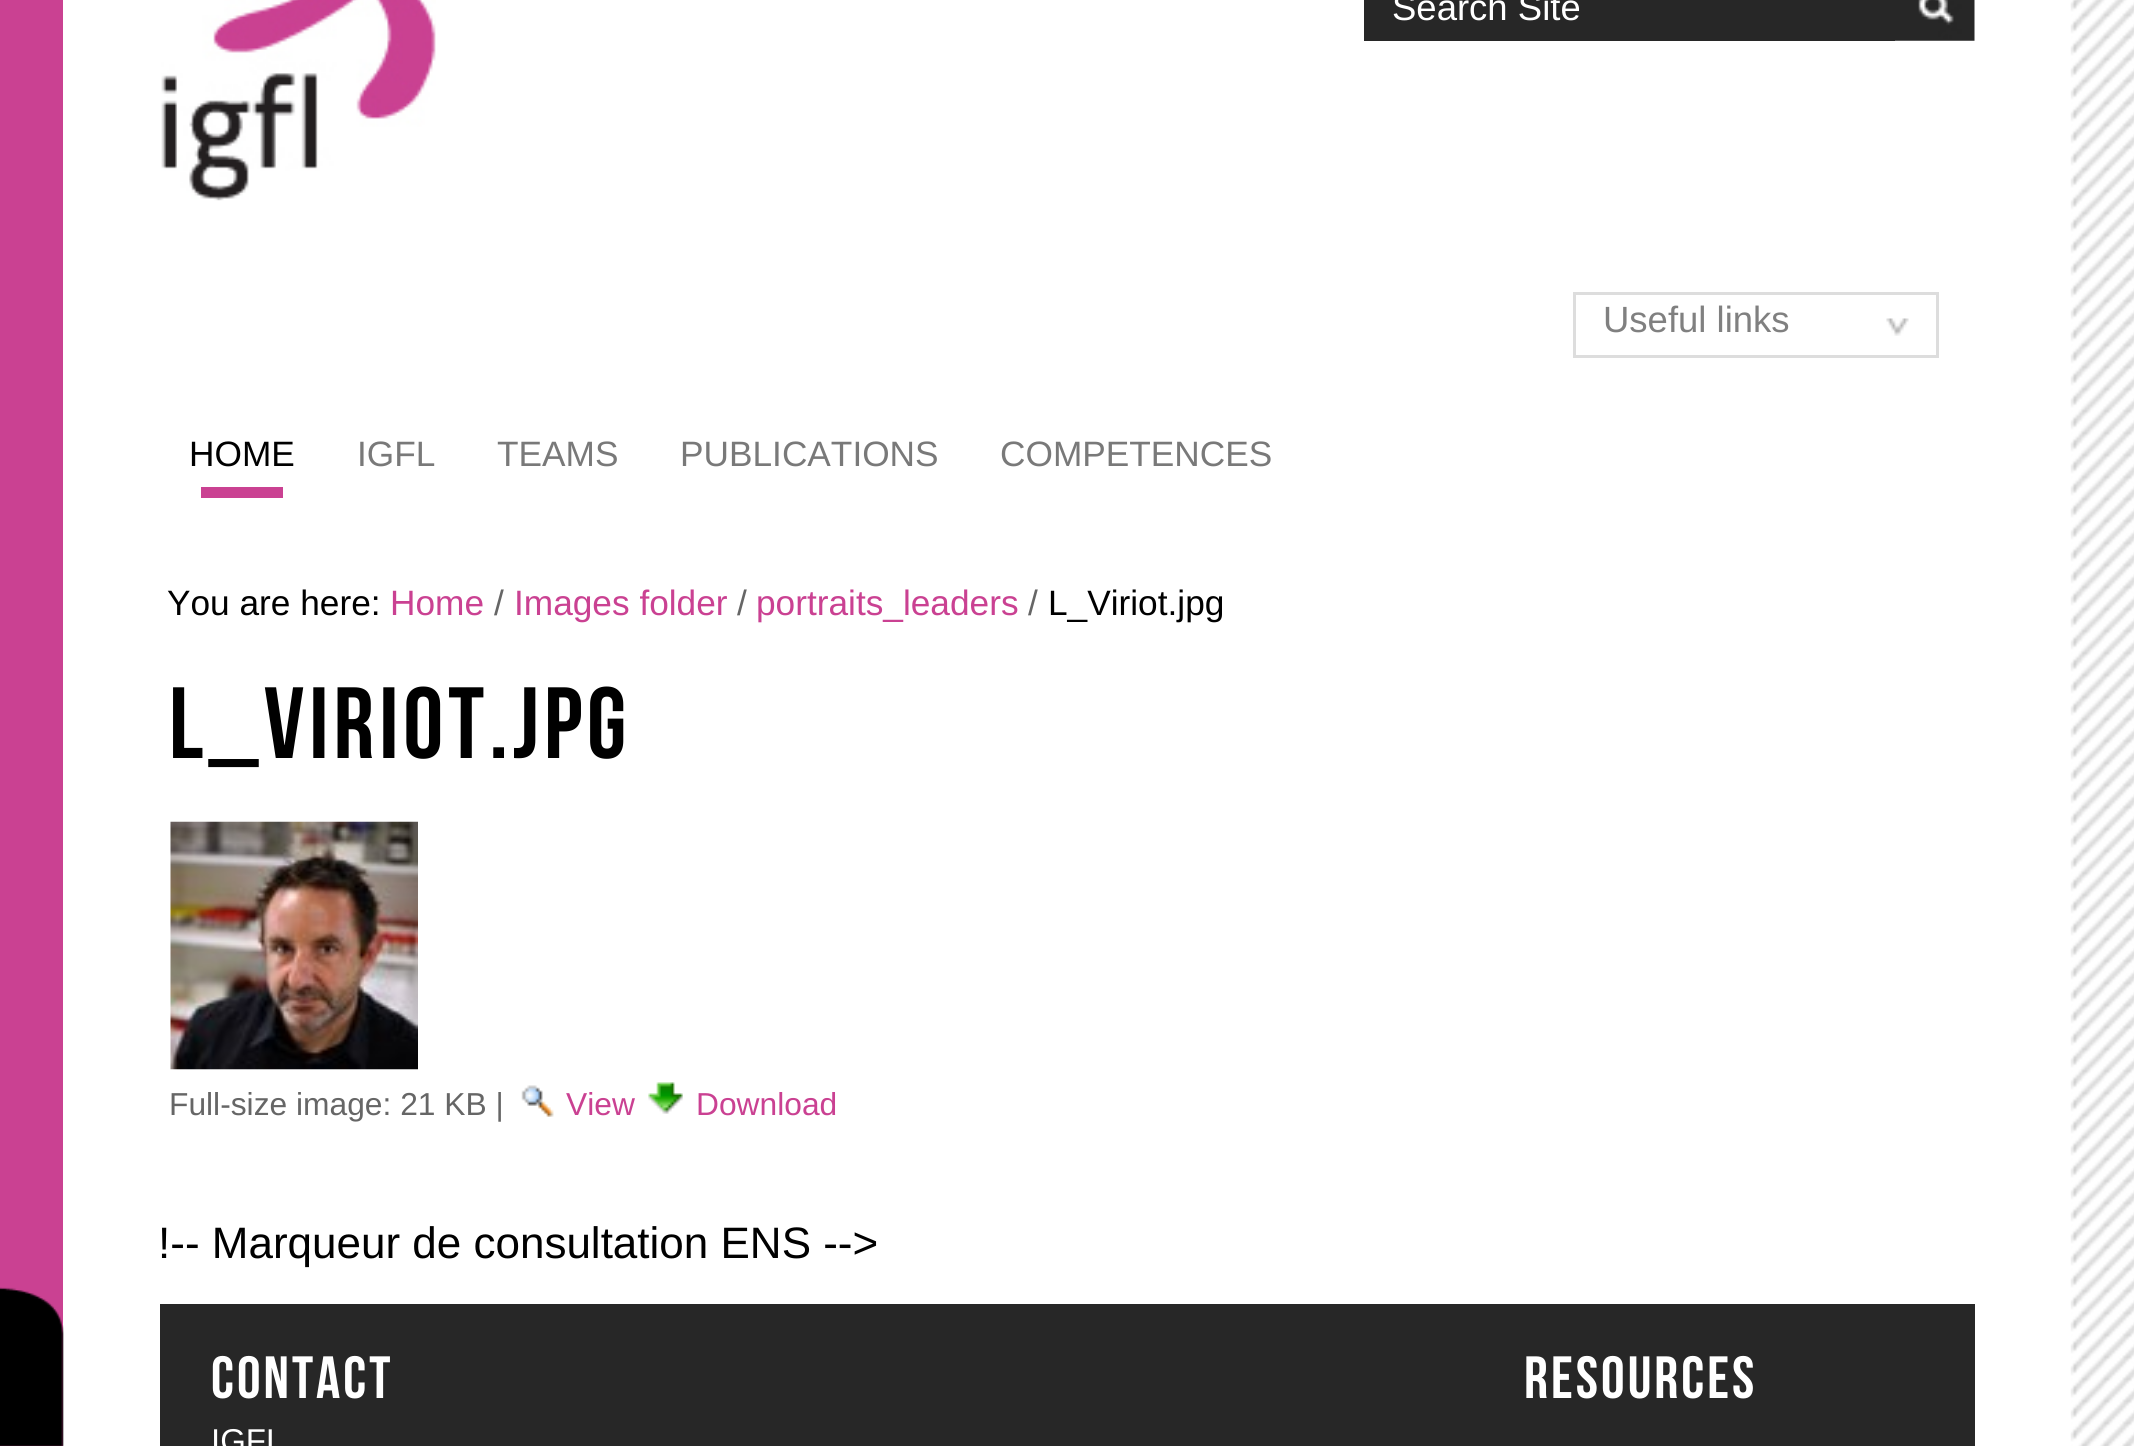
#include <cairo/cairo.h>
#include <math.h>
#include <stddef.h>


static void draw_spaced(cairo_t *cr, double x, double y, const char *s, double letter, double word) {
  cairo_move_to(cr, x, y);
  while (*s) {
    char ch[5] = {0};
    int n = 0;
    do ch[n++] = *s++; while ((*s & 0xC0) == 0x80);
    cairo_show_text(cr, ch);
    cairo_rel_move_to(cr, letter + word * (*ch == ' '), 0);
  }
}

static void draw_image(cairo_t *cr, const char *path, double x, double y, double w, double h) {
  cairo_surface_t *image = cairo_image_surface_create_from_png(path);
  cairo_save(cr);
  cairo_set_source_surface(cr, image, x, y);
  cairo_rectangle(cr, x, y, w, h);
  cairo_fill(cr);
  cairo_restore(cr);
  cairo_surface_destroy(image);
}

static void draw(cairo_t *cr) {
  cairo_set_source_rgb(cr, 1, 1, 1);
  cairo_paint(cr);
  cairo_set_source_rgb(cr, 202 / 255.0, 65 / 255.0, 146 / 255.0);
  cairo_rectangle(cr, 0, 0, 63, 1446);
  cairo_fill(cr);
  draw_image(cr, "images/1.png", 0, 1287, 64, 159);
  draw_image(cr, "images/2.png", 161, 0, 275, 201);
  cairo_set_source_rgb(cr, 39 / 255.0, 39 / 255.0, 39 / 255.0);
  cairo_rectangle(cr, 1364, 0, 531, 41);
  cairo_fill(cr);
  draw_image(cr, "images/3.png", 1895, 0, 80, 41);
  draw_image(cr, "images/4.png", 1886, 318, 23, 18);
  cairo_rectangle(cr, 1574.5, 293.5, 363, 63);
  cairo_set_source_rgb(cr, 221 / 255.0, 221 / 255.0, 221 / 255.0);
  cairo_set_line_width(cr, 3);
  cairo_stroke(cr);
  cairo_set_source_rgb(cr, 202 / 255.0, 65 / 255.0, 146 / 255.0);
  cairo_rectangle(cr, 201, 487, 82, 11);
  cairo_fill(cr);
  draw_image(cr, "images/5.png", 170, 821, 248, 249);
  draw_image(cr, "images/6.png", 521, 1085, 33, 32);
  draw_image(cr, "images/7.png", 648, 1082, 35, 32);
  cairo_set_source_rgb(cr, 39 / 255.0, 39 / 255.0, 39 / 255.0);
  cairo_rectangle(cr, 160, 1304, 1815, 142);
  cairo_fill(cr);
  draw_image(cr, "images/8.png", 2070, 0, 64, 1446);
  cairo_select_font_face(cr, "Liberation Sans", CAIRO_FONT_SLANT_NORMAL, CAIRO_FONT_WEIGHT_NORMAL);
  cairo_set_font_size(cr, 36.5);
  cairo_set_source_rgb(cr, 1, 1, 1);
  cairo_move_to(cr, 1392, 20);
  cairo_show_text(cr, "Search Site");
  cairo_set_source_rgb(cr, 128 / 255.0, 128 / 255.0, 128 / 255.0);
  cairo_move_to(cr, 1603, 332);
  cairo_show_text(cr, "Useful links");
  cairo_set_font_size(cr, 35.25);
  cairo_set_source_rgb(cr, 0, 0, 0);
  cairo_move_to(cr, 189, 466);
  cairo_show_text(cr, "HOME");
  cairo_set_source_rgb(cr, 121 / 255.0, 121 / 255.0, 121 / 255.0);
  cairo_move_to(cr, 357, 466);
  cairo_show_text(cr, "IGFL");
  cairo_move_to(cr, 497, 466);
  cairo_show_text(cr, "TEAMS");
  cairo_move_to(cr, 680, 466);
  cairo_show_text(cr, "PUBLICATIONS");
  cairo_move_to(cr, 1000, 466);
  cairo_show_text(cr, "COMPETENCES");
  cairo_set_source_rgb(cr, 0, 0, 0);
  cairo_move_to(cr, 167, 615);
  cairo_show_text(cr, "You are here:");
  cairo_set_source_rgb(cr, 202 / 255.0, 65 / 255.0, 146 / 255.0);
  cairo_move_to(cr, 390, 615);
  cairo_show_text(cr, "Home");
  cairo_set_source_rgb(cr, 102 / 255.0, 102 / 255.0, 102 / 255.0);
  cairo_move_to(cr, 494, 615);
  cairo_show_text(cr, "/");
  cairo_set_source_rgb(cr, 202 / 255.0, 65 / 255.0, 146 / 255.0);
  cairo_move_to(cr, 514, 615);
  cairo_show_text(cr, "Images folder");
  cairo_set_source_rgb(cr, 102 / 255.0, 102 / 255.0, 102 / 255.0);
  cairo_move_to(cr, 737, 615);
  cairo_show_text(cr, "/");
  cairo_set_source_rgb(cr, 202 / 255.0, 65 / 255.0, 146 / 255.0);
  cairo_move_to(cr, 756, 615);
  cairo_show_text(cr, "portraits_leaders");
  cairo_set_source_rgb(cr, 102 / 255.0, 102 / 255.0, 102 / 255.0);
  cairo_move_to(cr, 1028, 615);
  cairo_show_text(cr, "/");
  cairo_set_source_rgb(cr, 0, 0, 0);
  cairo_move_to(cr, 1048, 615);
  cairo_show_text(cr, "L_Viriot.jpg");
  cairo_select_font_face(cr, "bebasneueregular", CAIRO_FONT_SLANT_NORMAL, CAIRO_FONT_WEIGHT_NORMAL);
  cairo_set_font_size(cr, 101);
  draw_spaced(cr, 169, 758, "L_Viriot.jpg", 5, 0);
  cairo_select_font_face(cr, "Liberation Sans", CAIRO_FONT_SLANT_NORMAL, CAIRO_FONT_WEIGHT_NORMAL);
  cairo_set_font_size(cr, 31.75);
  cairo_set_source_rgb(cr, 102 / 255.0, 102 / 255.0, 102 / 255.0);
  cairo_move_to(cr, 169, 1115);
  cairo_show_text(cr, "Full-size image: 21 KB |");
  cairo_set_source_rgb(cr, 202 / 255.0, 65 / 255.0, 146 / 255.0);
  cairo_move_to(cr, 566, 1115);
  cairo_show_text(cr, "View");
  cairo_move_to(cr, 696, 1115);
  cairo_show_text(cr, "Download");
  cairo_set_font_size(cr, 44);
  cairo_set_source_rgb(cr, 0, 0, 0);
  cairo_move_to(cr, 158, 1258);
  cairo_show_text(cr, "!-- Marqueur de consultation ENS -->");
  cairo_select_font_face(cr, "bebasneueregular", CAIRO_FONT_SLANT_NORMAL, CAIRO_FONT_WEIGHT_NORMAL);
  cairo_set_font_size(cr, 59.5);
  cairo_set_source_rgb(cr, 1, 1, 1);
  draw_spaced(cr, 211, 1398, "Contact", 3, 0);
  cairo_select_font_face(cr, "Liberation Sans", CAIRO_FONT_SLANT_NORMAL, CAIRO_FONT_WEIGHT_NORMAL);
  cairo_set_font_size(cr, 33);
  cairo_move_to(cr, 211, 1452);
  cairo_show_text(cr, "IGFL");
  cairo_select_font_face(cr, "bebasneueregular", CAIRO_FONT_SLANT_NORMAL, CAIRO_FONT_WEIGHT_NORMAL);
  cairo_set_font_size(cr, 59.5);
  draw_spaced(cr, 1524, 1398, "Resources", 3, 0);
}

int main(void) {
  cairo_surface_t *surface = cairo_image_surface_create(CAIRO_FORMAT_RGB24, 2134, 1446);
  cairo_t *cr = cairo_create(surface);
  cairo_font_options_t *options = cairo_font_options_create();
  cairo_font_options_set_hint_metrics(options, CAIRO_HINT_METRICS_OFF);
  cairo_font_options_set_hint_style(options, CAIRO_HINT_STYLE_NONE);
  cairo_set_font_options(cr, options);
  cairo_set_miter_limit(cr, 4);
  draw(cr);
  cairo_surface_write_to_png(surface, "out.png");
  cairo_font_options_destroy(options);
  cairo_destroy(cr);
  cairo_surface_destroy(surface);
  return 0;
}
